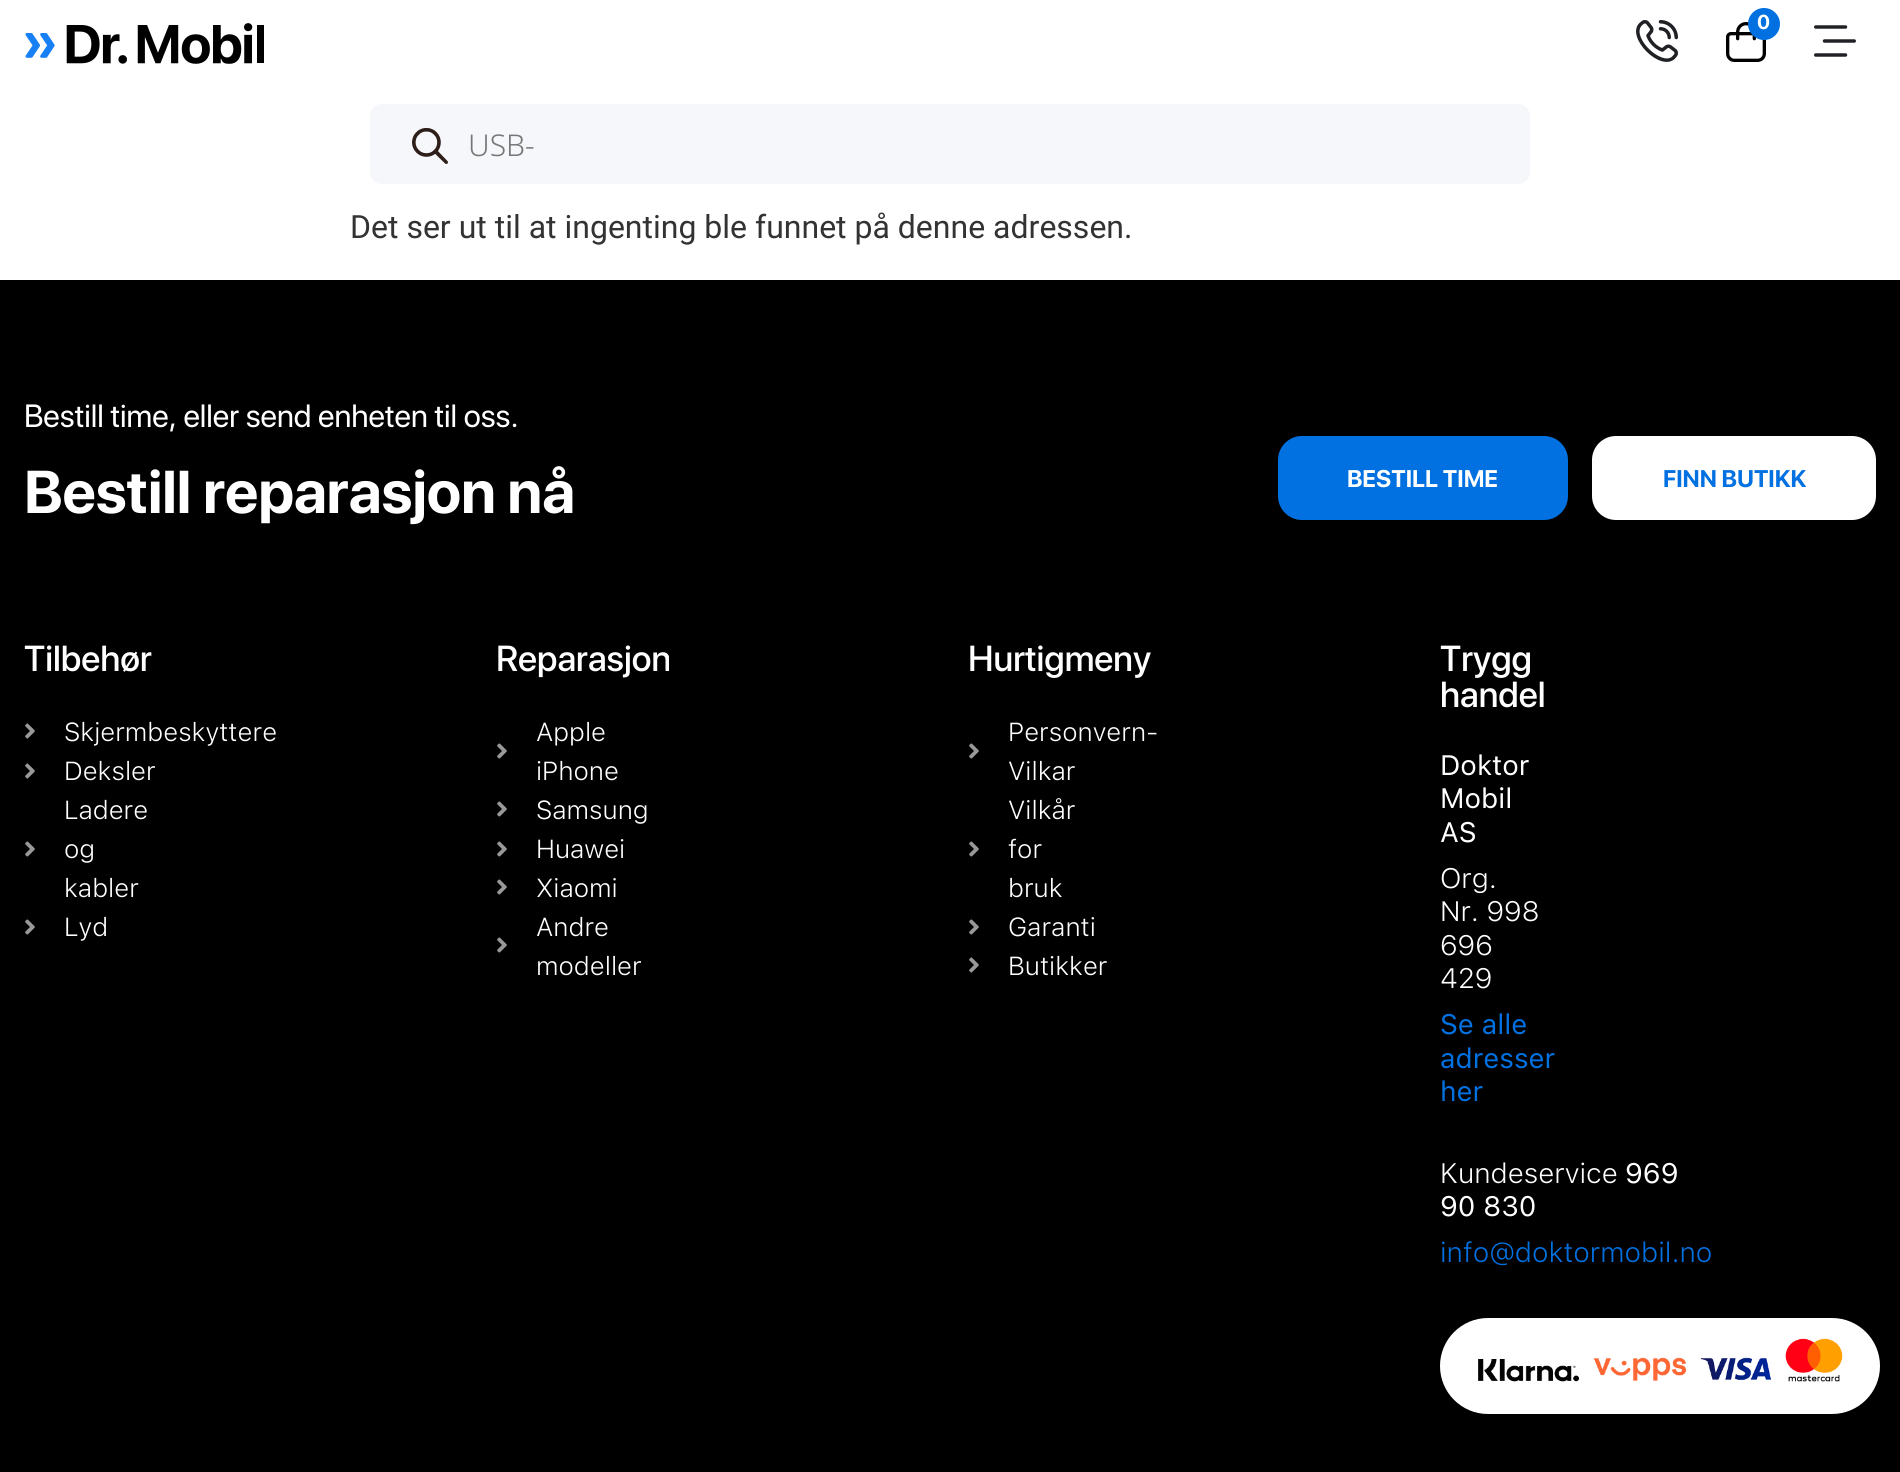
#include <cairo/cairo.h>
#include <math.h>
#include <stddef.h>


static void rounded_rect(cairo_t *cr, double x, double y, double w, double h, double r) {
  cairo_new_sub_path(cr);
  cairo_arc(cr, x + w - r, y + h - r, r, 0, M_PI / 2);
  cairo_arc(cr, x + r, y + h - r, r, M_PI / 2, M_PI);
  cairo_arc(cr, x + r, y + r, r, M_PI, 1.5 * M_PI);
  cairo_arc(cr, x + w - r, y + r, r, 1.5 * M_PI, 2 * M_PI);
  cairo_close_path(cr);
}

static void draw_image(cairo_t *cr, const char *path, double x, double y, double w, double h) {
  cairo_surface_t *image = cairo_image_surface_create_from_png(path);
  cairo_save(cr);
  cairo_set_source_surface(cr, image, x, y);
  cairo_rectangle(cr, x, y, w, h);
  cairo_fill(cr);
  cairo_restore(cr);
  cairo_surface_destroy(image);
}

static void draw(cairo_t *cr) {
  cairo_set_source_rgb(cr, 1, 1, 1);
  cairo_paint(cr);
  draw_image(cr, "images/1.png", 25, 23, 239, 41);
  draw_image(cr, "images/2.png", 1636, 20, 42, 42);
  draw_image(cr, "images/3.png", 1726, 22, 40, 40);
  cairo_set_source_rgb(cr, 1 / 255.0, 113 / 255.0, 225 / 255.0);
  cairo_arc(cr, 1764, 24, 16, 0, 2 * M_PI);
  cairo_fill(cr);
  draw_image(cr, "images/4.png", 1814, 25, 42, 32);
  cairo_set_source_rgb(cr, 246 / 255.0, 247 / 255.0, 250 / 255.0);
  rounded_rect(cr, 370, 104, 1160, 80, 12);
  cairo_fill(cr);
  draw_image(cr, "images/5.png", 412, 128, 36, 36);
  cairo_set_source_rgb(cr, 0, 0, 0);
  cairo_rectangle(cr, 0, 280, 1900, 1192);
  cairo_fill(cr);
  cairo_set_source_rgb(cr, 1 / 255.0, 113 / 255.0, 225 / 255.0);
  rounded_rect(cr, 1278, 436, 290, 84, 24);
  cairo_fill(cr);
  cairo_set_source_rgb(cr, 1, 1, 1);
  rounded_rect(cr, 1592, 436, 284, 84, 24);
  cairo_fill(cr);
  draw_image(cr, "images/6.png", 25, 723, 10, 16);
  draw_image(cr, "images/6.png", 25, 763, 10, 16);
  draw_image(cr, "images/6.png", 25, 841, 10, 16);
  draw_image(cr, "images/6.png", 25, 919, 10, 16);
  draw_image(cr, "images/6.png", 497, 743, 10, 16);
  draw_image(cr, "images/6.png", 497, 801, 10, 16);
  draw_image(cr, "images/6.png", 497, 841, 10, 16);
  draw_image(cr, "images/6.png", 497, 879, 10, 16);
  draw_image(cr, "images/6.png", 497, 937, 10, 16);
  draw_image(cr, "images/6.png", 969, 743, 10, 16);
  draw_image(cr, "images/6.png", 969, 841, 10, 16);
  draw_image(cr, "images/6.png", 969, 919, 10, 16);
  draw_image(cr, "images/6.png", 969, 957, 10, 16);
  rounded_rect(cr, 1440, 1318, 440, 96, 48);
  cairo_fill(cr);
  draw_image(cr, "images/7.png", 1478, 1338, 365, 44);
  cairo_select_font_face(cr, "SF Pro Display", CAIRO_FONT_SLANT_NORMAL, CAIRO_FONT_WEIGHT_BOLD);
  cairo_set_font_size(cr, 20);
  cairo_move_to(cr, 1757, 29);
  cairo_show_text(cr, "0");
  cairo_select_font_face(cr, "Noto Sans Light", CAIRO_FONT_SLANT_NORMAL, CAIRO_FONT_WEIGHT_NORMAL);
  cairo_set_font_size(cr, 30);
  cairo_set_source_rgb(cr, 119 / 255.0, 119 / 255.0, 119 / 255.0);
  cairo_move_to(cr, 468, 156);
  cairo_show_text(cr, "USB-");
  cairo_select_font_face(cr, "Roboto", CAIRO_FONT_SLANT_NORMAL, CAIRO_FONT_WEIGHT_NORMAL);
  cairo_set_font_size(cr, 32);
  cairo_set_source_rgb(cr, 51 / 255.0, 51 / 255.0, 51 / 255.0);
  cairo_move_to(cr, 350, 238);
  cairo_show_text(cr, "Det ser ut til at ingenting ble funnet på denne adressen.");
  cairo_select_font_face(cr, "SF Pro Display", CAIRO_FONT_SLANT_NORMAL, CAIRO_FONT_WEIGHT_NORMAL);
  cairo_set_source_rgb(cr, 1, 1, 1);
  cairo_move_to(cr, 24, 427);
  cairo_show_text(cr, "Bestill time, eller send enheten til oss.");
  cairo_select_font_face(cr, "SF Pro Display", CAIRO_FONT_SLANT_NORMAL, CAIRO_FONT_WEIGHT_BOLD);
  cairo_set_font_size(cr, 60);
  cairo_move_to(cr, 24, 513);
  cairo_show_text(cr, "Bestill reparasjon nå");
  cairo_set_font_size(cr, 24);
  cairo_move_to(cr, 1347, 487);
  cairo_show_text(cr, "BESTILL TIME");
  cairo_set_source_rgb(cr, 1 / 255.0, 113 / 255.0, 225 / 255.0);
  cairo_move_to(cr, 1663, 487);
  cairo_show_text(cr, "FINN BUTIKK");
  cairo_select_font_face(cr, "SF Pro Display Medium", CAIRO_FONT_SLANT_NORMAL, CAIRO_FONT_WEIGHT_NORMAL);
  cairo_set_font_size(cr, 36);
  cairo_set_source_rgb(cr, 1, 1, 1);
  cairo_move_to(cr, 24, 671);
  cairo_show_text(cr, "Tilbehør");
  cairo_select_font_face(cr, "SF Pro Text Light", CAIRO_FONT_SLANT_NORMAL, CAIRO_FONT_WEIGHT_NORMAL);
  cairo_set_font_size(cr, 26);
  cairo_move_to(cr, 64, 741);
  cairo_show_text(cr, "Skjermbeskyttere");
  cairo_move_to(cr, 64, 780);
  cairo_show_text(cr, "Deksler");
  cairo_move_to(cr, 64, 819);
  cairo_show_text(cr, "Ladere");
  cairo_move_to(cr, 64, 858);
  cairo_show_text(cr, "og");
  cairo_move_to(cr, 64, 897);
  cairo_show_text(cr, "kabler");
  cairo_move_to(cr, 64, 936);
  cairo_show_text(cr, "Lyd");
  cairo_select_font_face(cr, "SF Pro Display Medium", CAIRO_FONT_SLANT_NORMAL, CAIRO_FONT_WEIGHT_NORMAL);
  cairo_set_font_size(cr, 36);
  cairo_move_to(cr, 496, 671);
  cairo_show_text(cr, "Reparasjon");
  cairo_select_font_face(cr, "SF Pro Text Light", CAIRO_FONT_SLANT_NORMAL, CAIRO_FONT_WEIGHT_NORMAL);
  cairo_set_font_size(cr, 26);
  cairo_move_to(cr, 536, 741);
  cairo_show_text(cr, "Apple");
  cairo_move_to(cr, 536, 780);
  cairo_show_text(cr, "iPhone");
  cairo_move_to(cr, 536, 819);
  cairo_show_text(cr, "Samsung");
  cairo_move_to(cr, 536, 858);
  cairo_show_text(cr, "Huawei");
  cairo_move_to(cr, 536, 897);
  cairo_show_text(cr, "Xiaomi");
  cairo_move_to(cr, 536, 936);
  cairo_show_text(cr, "Andre");
  cairo_move_to(cr, 536, 975);
  cairo_show_text(cr, "modeller");
  cairo_select_font_face(cr, "SF Pro Display Medium", CAIRO_FONT_SLANT_NORMAL, CAIRO_FONT_WEIGHT_NORMAL);
  cairo_set_font_size(cr, 36);
  cairo_move_to(cr, 968, 671);
  cairo_show_text(cr, "Hurtigmeny");
  cairo_select_font_face(cr, "SF Pro Text Light", CAIRO_FONT_SLANT_NORMAL, CAIRO_FONT_WEIGHT_NORMAL);
  cairo_set_font_size(cr, 26);
  cairo_move_to(cr, 1008, 741);
  cairo_show_text(cr, "Personvern-");
  cairo_move_to(cr, 1008, 780);
  cairo_show_text(cr, "Vilkar");
  cairo_move_to(cr, 1008, 819);
  cairo_show_text(cr, "Vilkår");
  cairo_move_to(cr, 1008, 858);
  cairo_show_text(cr, "for");
  cairo_move_to(cr, 1008, 897);
  cairo_show_text(cr, "bruk");
  cairo_move_to(cr, 1008, 936);
  cairo_show_text(cr, "Garanti");
  cairo_move_to(cr, 1008, 975);
  cairo_show_text(cr, "Butikker");
  cairo_select_font_face(cr, "SF Pro Display Medium", CAIRO_FONT_SLANT_NORMAL, CAIRO_FONT_WEIGHT_NORMAL);
  cairo_set_font_size(cr, 36);
  cairo_move_to(cr, 1440, 671);
  cairo_show_text(cr, "Trygg");
  cairo_move_to(cr, 1440, 707);
  cairo_show_text(cr, "handel");
  cairo_select_font_face(cr, "SF Pro Text", CAIRO_FONT_SLANT_NORMAL, CAIRO_FONT_WEIGHT_NORMAL);
  cairo_set_font_size(cr, 28);
  cairo_move_to(cr, 1440, 775);
  cairo_show_text(cr, "Doktor");
  cairo_move_to(cr, 1440, 808);
  cairo_show_text(cr, "Mobil");
  cairo_move_to(cr, 1440, 842);
  cairo_show_text(cr, "AS");
  cairo_select_font_face(cr, "SF Pro Text Light", CAIRO_FONT_SLANT_NORMAL, CAIRO_FONT_WEIGHT_NORMAL);
  cairo_move_to(cr, 1440, 888);
  cairo_show_text(cr, "Org.");
  cairo_move_to(cr, 1440, 921);
  cairo_show_text(cr, "Nr. 998");
  cairo_move_to(cr, 1440, 955);
  cairo_show_text(cr, "696");
  cairo_move_to(cr, 1440, 988);
  cairo_show_text(cr, "429");
  cairo_select_font_face(cr, "SF Pro Text", CAIRO_FONT_SLANT_NORMAL, CAIRO_FONT_WEIGHT_NORMAL);
  cairo_set_source_rgb(cr, 1 / 255.0, 113 / 255.0, 225 / 255.0);
  cairo_move_to(cr, 1440, 1034);
  cairo_show_text(cr, "Se alle");
  cairo_move_to(cr, 1440, 1068);
  cairo_show_text(cr, "adresser");
  cairo_move_to(cr, 1440, 1101);
  cairo_show_text(cr, "her");
  cairo_select_font_face(cr, "SF Pro Text Light", CAIRO_FONT_SLANT_NORMAL, CAIRO_FONT_WEIGHT_NORMAL);
  cairo_set_source_rgb(cr, 1, 1, 1);
  cairo_move_to(cr, 1440, 1183);
  cairo_show_text(cr, "Kundeservice");
  cairo_select_font_face(cr, "SF Pro Text", CAIRO_FONT_SLANT_NORMAL, CAIRO_FONT_WEIGHT_NORMAL);
  cairo_move_to(cr, 1625, 1183);
  cairo_show_text(cr, "969");
  cairo_move_to(cr, 1440, 1216);
  cairo_show_text(cr, "90 830");
  cairo_select_font_face(cr, "SF Pro Text Light", CAIRO_FONT_SLANT_NORMAL, CAIRO_FONT_WEIGHT_NORMAL);
  cairo_set_source_rgb(cr, 1 / 255.0, 113 / 255.0, 225 / 255.0);
  cairo_move_to(cr, 1440, 1262);
  cairo_show_text(cr, "info@doktormobil.no");
}

int main(void) {
  cairo_surface_t *surface = cairo_image_surface_create(CAIRO_FORMAT_RGB24, 1900, 1472);
  cairo_t *cr = cairo_create(surface);
  cairo_font_options_t *options = cairo_font_options_create();
  cairo_font_options_set_hint_metrics(options, CAIRO_HINT_METRICS_OFF);
  cairo_font_options_set_hint_style(options, CAIRO_HINT_STYLE_NONE);
  cairo_set_font_options(cr, options);
  cairo_set_miter_limit(cr, 4);
  draw(cr);
  cairo_surface_write_to_png(surface, "out.png");
  cairo_font_options_destroy(options);
  cairo_destroy(cr);
  cairo_surface_destroy(surface);
  return 0;
}
